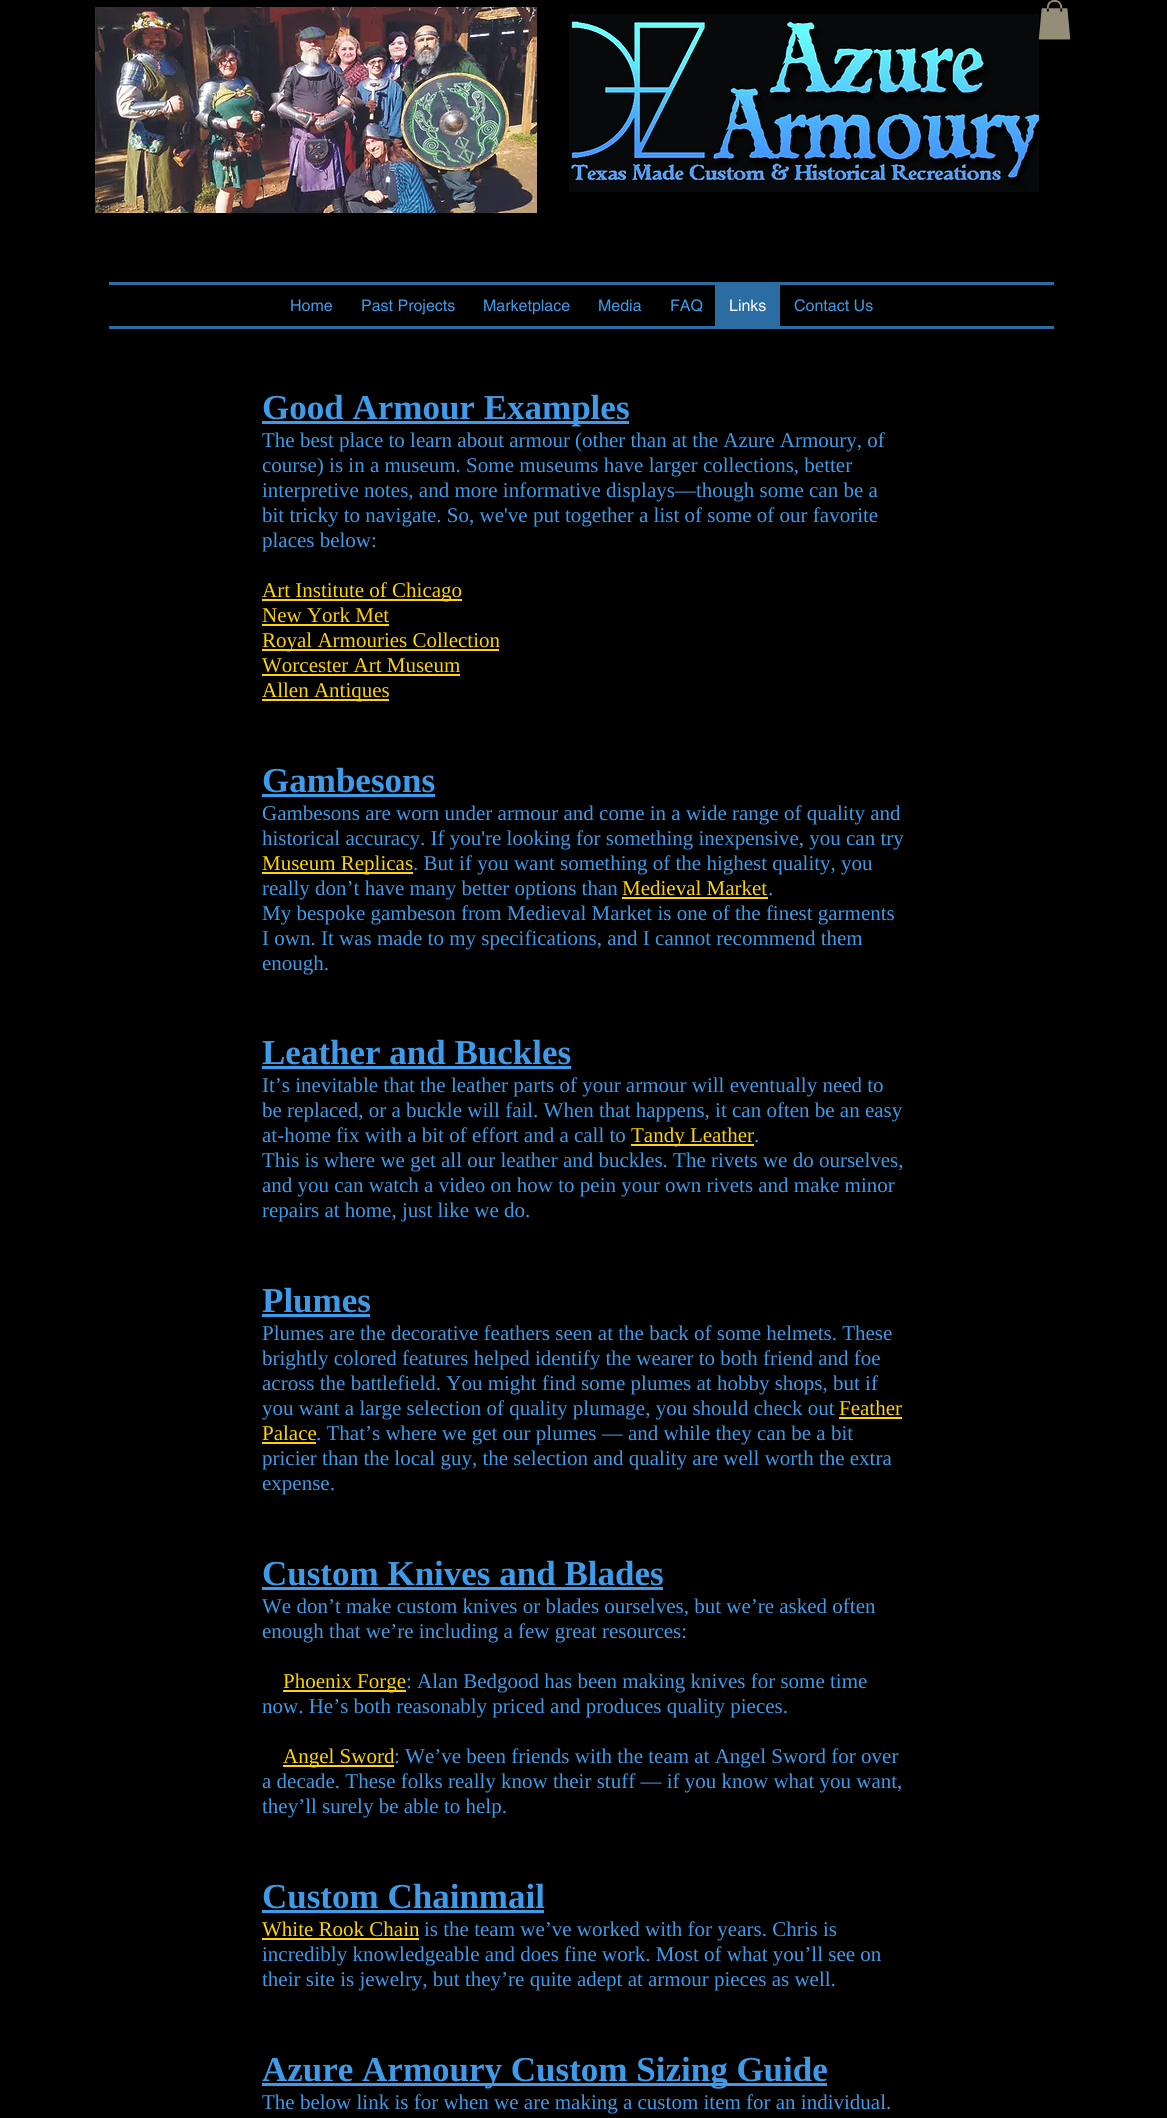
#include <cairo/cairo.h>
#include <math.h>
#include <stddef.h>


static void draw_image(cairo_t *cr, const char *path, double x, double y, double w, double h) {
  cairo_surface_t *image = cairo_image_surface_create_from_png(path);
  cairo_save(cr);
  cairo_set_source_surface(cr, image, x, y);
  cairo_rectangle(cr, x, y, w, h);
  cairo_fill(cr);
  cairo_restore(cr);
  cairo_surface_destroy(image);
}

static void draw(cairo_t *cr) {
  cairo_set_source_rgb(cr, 0, 0, 0);
  cairo_paint(cr);
  draw_image(cr, "images/1.png", 95, 7, 442, 206);
  draw_image(cr, "images/2.png", 569, 14, 470, 178);
  draw_image(cr, "images/3.png", 1038, 0, 33, 40);
  cairo_set_source_rgb(cr, 43 / 255.0, 108 / 255.0, 163 / 255.0);
  cairo_rectangle(cr, 109, 282, 945, 3);
  cairo_fill(cr);
  cairo_rectangle(cr, 109, 326, 945, 3);
  cairo_fill(cr);
  cairo_rectangle(cr, 715, 285, 65, 41);
  cairo_fill(cr);
  cairo_set_source_rgb(cr, 61 / 255.0, 155 / 255.0, 233 / 255.0);
  cairo_rectangle(cr, 262, 421, 367, 3);
  cairo_fill(cr);
  cairo_set_source_rgb(cr, 1, 212 / 255.0, 0);
  cairo_rectangle(cr, 262, 599, 200, 2);
  cairo_fill(cr);
  cairo_rectangle(cr, 262, 624, 127, 2);
  cairo_fill(cr);
  cairo_rectangle(cr, 262, 649, 237, 2);
  cairo_fill(cr);
  cairo_rectangle(cr, 262, 674, 198, 2);
  cairo_fill(cr);
  cairo_rectangle(cr, 262, 699, 127, 2);
  cairo_fill(cr);
  cairo_set_source_rgb(cr, 61 / 255.0, 155 / 255.0, 233 / 255.0);
  cairo_rectangle(cr, 262, 794, 173, 3);
  cairo_fill(cr);
  cairo_set_source_rgb(cr, 1, 212 / 255.0, 0);
  cairo_rectangle(cr, 262, 872, 151, 2);
  cairo_fill(cr);
  cairo_rectangle(cr, 622, 897, 146, 2);
  cairo_fill(cr);
  cairo_set_source_rgb(cr, 61 / 255.0, 155 / 255.0, 233 / 255.0);
  cairo_rectangle(cr, 262, 1066, 309, 3);
  cairo_fill(cr);
  cairo_set_source_rgb(cr, 1, 212 / 255.0, 0);
  cairo_rectangle(cr, 631, 1144, 123, 2);
  cairo_fill(cr);
  cairo_set_source_rgb(cr, 61 / 255.0, 155 / 255.0, 233 / 255.0);
  cairo_rectangle(cr, 262, 1314, 108, 3);
  cairo_fill(cr);
  cairo_set_source_rgb(cr, 1, 212 / 255.0, 0);
  cairo_rectangle(cr, 839, 1417, 63, 2);
  cairo_fill(cr);
  cairo_rectangle(cr, 262, 1442, 54, 2);
  cairo_fill(cr);
  cairo_set_source_rgb(cr, 61 / 255.0, 155 / 255.0, 233 / 255.0);
  cairo_rectangle(cr, 262, 1587, 401, 3);
  cairo_fill(cr);
  cairo_set_source_rgb(cr, 1, 212 / 255.0, 0);
  cairo_rectangle(cr, 283, 1690, 123, 2);
  cairo_fill(cr);
  cairo_rectangle(cr, 283, 1765, 111, 2);
  cairo_fill(cr);
  cairo_set_source_rgb(cr, 61 / 255.0, 155 / 255.0, 233 / 255.0);
  cairo_rectangle(cr, 262, 1910, 282, 3);
  cairo_fill(cr);
  cairo_set_source_rgb(cr, 1, 212 / 255.0, 0);
  cairo_rectangle(cr, 262, 1938, 157, 2);
  cairo_fill(cr);
  cairo_set_source_rgb(cr, 61 / 255.0, 155 / 255.0, 233 / 255.0);
  cairo_rectangle(cr, 262, 2083, 565, 3);
  cairo_fill(cr);
  cairo_select_font_face(cr, "helvetica", CAIRO_FONT_SLANT_NORMAL, CAIRO_FONT_WEIGHT_NORMAL);
  cairo_set_font_size(cr, 16);
  cairo_move_to(cr, 290, 311);
  cairo_show_text(cr, "Home");
  cairo_move_to(cr, 361, 311);
  cairo_show_text(cr, "Past Projects");
  cairo_move_to(cr, 483, 311);
  cairo_show_text(cr, "Marketplace");
  cairo_move_to(cr, 598, 311);
  cairo_show_text(cr, "Media");
  cairo_move_to(cr, 670, 311);
  cairo_show_text(cr, "FAQ");
  cairo_set_source_rgb(cr, 1, 1, 1);
  cairo_move_to(cr, 729, 311);
  cairo_show_text(cr, "Links");
  cairo_set_source_rgb(cr, 61 / 255.0, 155 / 255.0, 233 / 255.0);
  cairo_move_to(cr, 794, 311);
  cairo_show_text(cr, "Contact Us");
  cairo_select_font_face(cr, "Liberation Serif", CAIRO_FONT_SLANT_NORMAL, CAIRO_FONT_WEIGHT_BOLD);
  cairo_set_font_size(cr, 35);
  cairo_move_to(cr, 262, 419);
  cairo_show_text(cr, "Good Armour Examples");
  cairo_select_font_face(cr, "Liberation Serif", CAIRO_FONT_SLANT_NORMAL, CAIRO_FONT_WEIGHT_NORMAL);
  cairo_set_font_size(cr, 21);
  cairo_move_to(cr, 262, 447);
  cairo_show_text(cr, "The best place to learn about armour (other than at the Azure Armoury, of");
  cairo_move_to(cr, 262, 472);
  cairo_show_text(cr, "course) is in a museum. Some museums have larger collections, better");
  cairo_move_to(cr, 262, 497);
  cairo_show_text(cr, "interpretive notes, and more informative displays—though some can be a");
  cairo_move_to(cr, 262, 522);
  cairo_show_text(cr, "bit tricky to navigate. So, we've put together a list of some of our favorite");
  cairo_move_to(cr, 262, 547);
  cairo_show_text(cr, "places below:");
  cairo_set_source_rgb(cr, 1, 212 / 255.0, 0);
  cairo_move_to(cr, 262, 597);
  cairo_show_text(cr, "Art Institute of Chicago");
  cairo_move_to(cr, 262, 622);
  cairo_show_text(cr, "New York Met");
  cairo_move_to(cr, 262, 647);
  cairo_show_text(cr, "Royal Armouries Collection");
  cairo_move_to(cr, 262, 672);
  cairo_show_text(cr, "Worcester Art Museum");
  cairo_move_to(cr, 262, 697);
  cairo_show_text(cr, "Allen Antiques");
  cairo_select_font_face(cr, "Liberation Serif", CAIRO_FONT_SLANT_NORMAL, CAIRO_FONT_WEIGHT_BOLD);
  cairo_set_font_size(cr, 35);
  cairo_set_source_rgb(cr, 61 / 255.0, 155 / 255.0, 233 / 255.0);
  cairo_move_to(cr, 262, 792);
  cairo_show_text(cr, "Gambesons");
  cairo_select_font_face(cr, "Liberation Serif", CAIRO_FONT_SLANT_NORMAL, CAIRO_FONT_WEIGHT_NORMAL);
  cairo_set_font_size(cr, 21);
  cairo_move_to(cr, 262, 820);
  cairo_show_text(cr, "Gambesons are worn under armour and come in a wide range of quality and");
  cairo_move_to(cr, 262, 845);
  cairo_show_text(cr, "historical accuracy. If you're looking for something inexpensive, you can try");
  cairo_set_source_rgb(cr, 1, 212 / 255.0, 0);
  cairo_move_to(cr, 262, 870);
  cairo_show_text(cr, "Museum Replicas");
  cairo_set_source_rgb(cr, 61 / 255.0, 155 / 255.0, 233 / 255.0);
  cairo_move_to(cr, 413, 870);
  cairo_show_text(cr, ". But if you want something of the highest quality, you");
  cairo_move_to(cr, 262, 895);
  cairo_show_text(cr, "really don’t have many better options than");
  cairo_set_source_rgb(cr, 1, 212 / 255.0, 0);
  cairo_move_to(cr, 622, 895);
  cairo_show_text(cr, "Medieval Market");
  cairo_set_source_rgb(cr, 61 / 255.0, 155 / 255.0, 233 / 255.0);
  cairo_move_to(cr, 768, 895);
  cairo_show_text(cr, ".");
  cairo_move_to(cr, 262, 920);
  cairo_show_text(cr, "My bespoke gambeson from Medieval Market is one of the finest garments");
  cairo_move_to(cr, 262, 945);
  cairo_show_text(cr, "I own. It was made to my specifications, and I cannot recommend them");
  cairo_move_to(cr, 262, 970);
  cairo_show_text(cr, "enough.");
  cairo_select_font_face(cr, "Liberation Serif", CAIRO_FONT_SLANT_NORMAL, CAIRO_FONT_WEIGHT_BOLD);
  cairo_set_font_size(cr, 35);
  cairo_move_to(cr, 262, 1064);
  cairo_show_text(cr, "Leather and Buckles");
  cairo_select_font_face(cr, "Liberation Serif", CAIRO_FONT_SLANT_NORMAL, CAIRO_FONT_WEIGHT_NORMAL);
  cairo_set_font_size(cr, 21);
  cairo_move_to(cr, 262, 1092);
  cairo_show_text(cr, "It’s inevitable that the leather parts of your armour will eventually need to");
  cairo_move_to(cr, 262, 1117);
  cairo_show_text(cr, "be replaced, or a buckle will fail. When that happens, it can often be an easy");
  cairo_move_to(cr, 262, 1142);
  cairo_show_text(cr, "at-home fix with a bit of effort and a call to");
  cairo_set_source_rgb(cr, 1, 212 / 255.0, 0);
  cairo_move_to(cr, 631, 1142);
  cairo_show_text(cr, "Tandy Leather");
  cairo_set_source_rgb(cr, 61 / 255.0, 155 / 255.0, 233 / 255.0);
  cairo_move_to(cr, 754, 1142);
  cairo_show_text(cr, ".");
  cairo_move_to(cr, 262, 1167);
  cairo_show_text(cr, "This is where we get all our leather and buckles. The rivets we do ourselves,");
  cairo_move_to(cr, 262, 1192);
  cairo_show_text(cr, "and you can watch a video on how to pein your own rivets and make minor");
  cairo_move_to(cr, 262, 1217);
  cairo_show_text(cr, "repairs at home, just like we do.");
  cairo_select_font_face(cr, "Liberation Serif", CAIRO_FONT_SLANT_NORMAL, CAIRO_FONT_WEIGHT_BOLD);
  cairo_set_font_size(cr, 35);
  cairo_move_to(cr, 262, 1312);
  cairo_show_text(cr, "Plumes");
  cairo_select_font_face(cr, "Liberation Serif", CAIRO_FONT_SLANT_NORMAL, CAIRO_FONT_WEIGHT_NORMAL);
  cairo_set_font_size(cr, 21);
  cairo_move_to(cr, 262, 1340);
  cairo_show_text(cr, "Plumes are the decorative feathers seen at the back of some helmets. These");
  cairo_move_to(cr, 262, 1365);
  cairo_show_text(cr, "brightly colored features helped identify the wearer to both friend and foe");
  cairo_move_to(cr, 262, 1390);
  cairo_show_text(cr, "across the battlefield. You might find some plumes at hobby shops, but if");
  cairo_move_to(cr, 262, 1415);
  cairo_show_text(cr, "you want a large selection of quality plumage, you should check out");
  cairo_set_source_rgb(cr, 1, 212 / 255.0, 0);
  cairo_move_to(cr, 839, 1415);
  cairo_show_text(cr, "Feather");
  cairo_move_to(cr, 262, 1440);
  cairo_show_text(cr, "Palace");
  cairo_set_source_rgb(cr, 61 / 255.0, 155 / 255.0, 233 / 255.0);
  cairo_move_to(cr, 316, 1440);
  cairo_show_text(cr, ". That’s where we get our plumes — and while they can be a bit");
  cairo_move_to(cr, 262, 1465);
  cairo_show_text(cr, "pricier than the local guy, the selection and quality are well worth the extra");
  cairo_move_to(cr, 262, 1490);
  cairo_show_text(cr, "expense.");
  cairo_select_font_face(cr, "Liberation Serif", CAIRO_FONT_SLANT_NORMAL, CAIRO_FONT_WEIGHT_BOLD);
  cairo_set_font_size(cr, 35);
  cairo_move_to(cr, 262, 1585);
  cairo_show_text(cr, "Custom Knives and Blades");
  cairo_select_font_face(cr, "Liberation Serif", CAIRO_FONT_SLANT_NORMAL, CAIRO_FONT_WEIGHT_NORMAL);
  cairo_set_font_size(cr, 21);
  cairo_move_to(cr, 262, 1613);
  cairo_show_text(cr, "We don’t make custom knives or blades ourselves, but we’re asked often");
  cairo_move_to(cr, 262, 1638);
  cairo_show_text(cr, "enough that we’re including a few great resources:");
  cairo_set_source_rgb(cr, 1, 212 / 255.0, 0);
  cairo_move_to(cr, 283, 1688);
  cairo_show_text(cr, "Phoenix Forge");
  cairo_set_source_rgb(cr, 61 / 255.0, 155 / 255.0, 233 / 255.0);
  cairo_move_to(cr, 406, 1688);
  cairo_show_text(cr, ": Alan Bedgood has been making knives for some time");
  cairo_move_to(cr, 262, 1713);
  cairo_show_text(cr, "now. He’s both reasonably priced and produces quality pieces.");
  cairo_set_source_rgb(cr, 1, 212 / 255.0, 0);
  cairo_move_to(cr, 283, 1763);
  cairo_show_text(cr, "Angel Sword");
  cairo_set_source_rgb(cr, 61 / 255.0, 155 / 255.0, 233 / 255.0);
  cairo_move_to(cr, 394, 1763);
  cairo_show_text(cr, ": We’ve been friends with the team at Angel Sword for over");
  cairo_move_to(cr, 262, 1788);
  cairo_show_text(cr, "a decade. These folks really know their stuff — if you know what you want,");
  cairo_move_to(cr, 262, 1813);
  cairo_show_text(cr, "they’ll surely be able to help.");
  cairo_select_font_face(cr, "Liberation Serif", CAIRO_FONT_SLANT_NORMAL, CAIRO_FONT_WEIGHT_BOLD);
  cairo_set_font_size(cr, 35);
  cairo_move_to(cr, 262, 1908);
  cairo_show_text(cr, "Custom Chainmail");
  cairo_select_font_face(cr, "Liberation Serif", CAIRO_FONT_SLANT_NORMAL, CAIRO_FONT_WEIGHT_NORMAL);
  cairo_set_font_size(cr, 21);
  cairo_set_source_rgb(cr, 1, 212 / 255.0, 0);
  cairo_move_to(cr, 262, 1936);
  cairo_show_text(cr, "White Rook Chain");
  cairo_set_source_rgb(cr, 61 / 255.0, 155 / 255.0, 233 / 255.0);
  cairo_move_to(cr, 424, 1936);
  cairo_show_text(cr, "is the team we’ve worked with for years. Chris is");
  cairo_move_to(cr, 262, 1961);
  cairo_show_text(cr, "incredibly knowledgeable and does fine work. Most of what you’ll see on");
  cairo_move_to(cr, 262, 1986);
  cairo_show_text(cr, "their site is jewelry, but they’re quite adept at armour pieces as well.");
  cairo_select_font_face(cr, "Liberation Serif", CAIRO_FONT_SLANT_NORMAL, CAIRO_FONT_WEIGHT_BOLD);
  cairo_set_font_size(cr, 35);
  cairo_move_to(cr, 262, 2081);
  cairo_show_text(cr, "Azure Armoury Custom Sizing Guide");
  cairo_select_font_face(cr, "Liberation Serif", CAIRO_FONT_SLANT_NORMAL, CAIRO_FONT_WEIGHT_NORMAL);
  cairo_set_font_size(cr, 21);
  cairo_move_to(cr, 262, 2109);
  cairo_show_text(cr, "The below link is for when we are making a custom item for an individual.");
}

int main(void) {
  cairo_surface_t *surface = cairo_image_surface_create(CAIRO_FORMAT_RGB24, 1167, 2118);
  cairo_t *cr = cairo_create(surface);
  cairo_font_options_t *options = cairo_font_options_create();
  cairo_font_options_set_hint_metrics(options, CAIRO_HINT_METRICS_OFF);
  cairo_font_options_set_hint_style(options, CAIRO_HINT_STYLE_NONE);
  cairo_set_font_options(cr, options);
  cairo_set_miter_limit(cr, 4);
  draw(cr);
  cairo_surface_write_to_png(surface, "out.png");
  cairo_font_options_destroy(options);
  cairo_destroy(cr);
  cairo_surface_destroy(surface);
  return 0;
}
